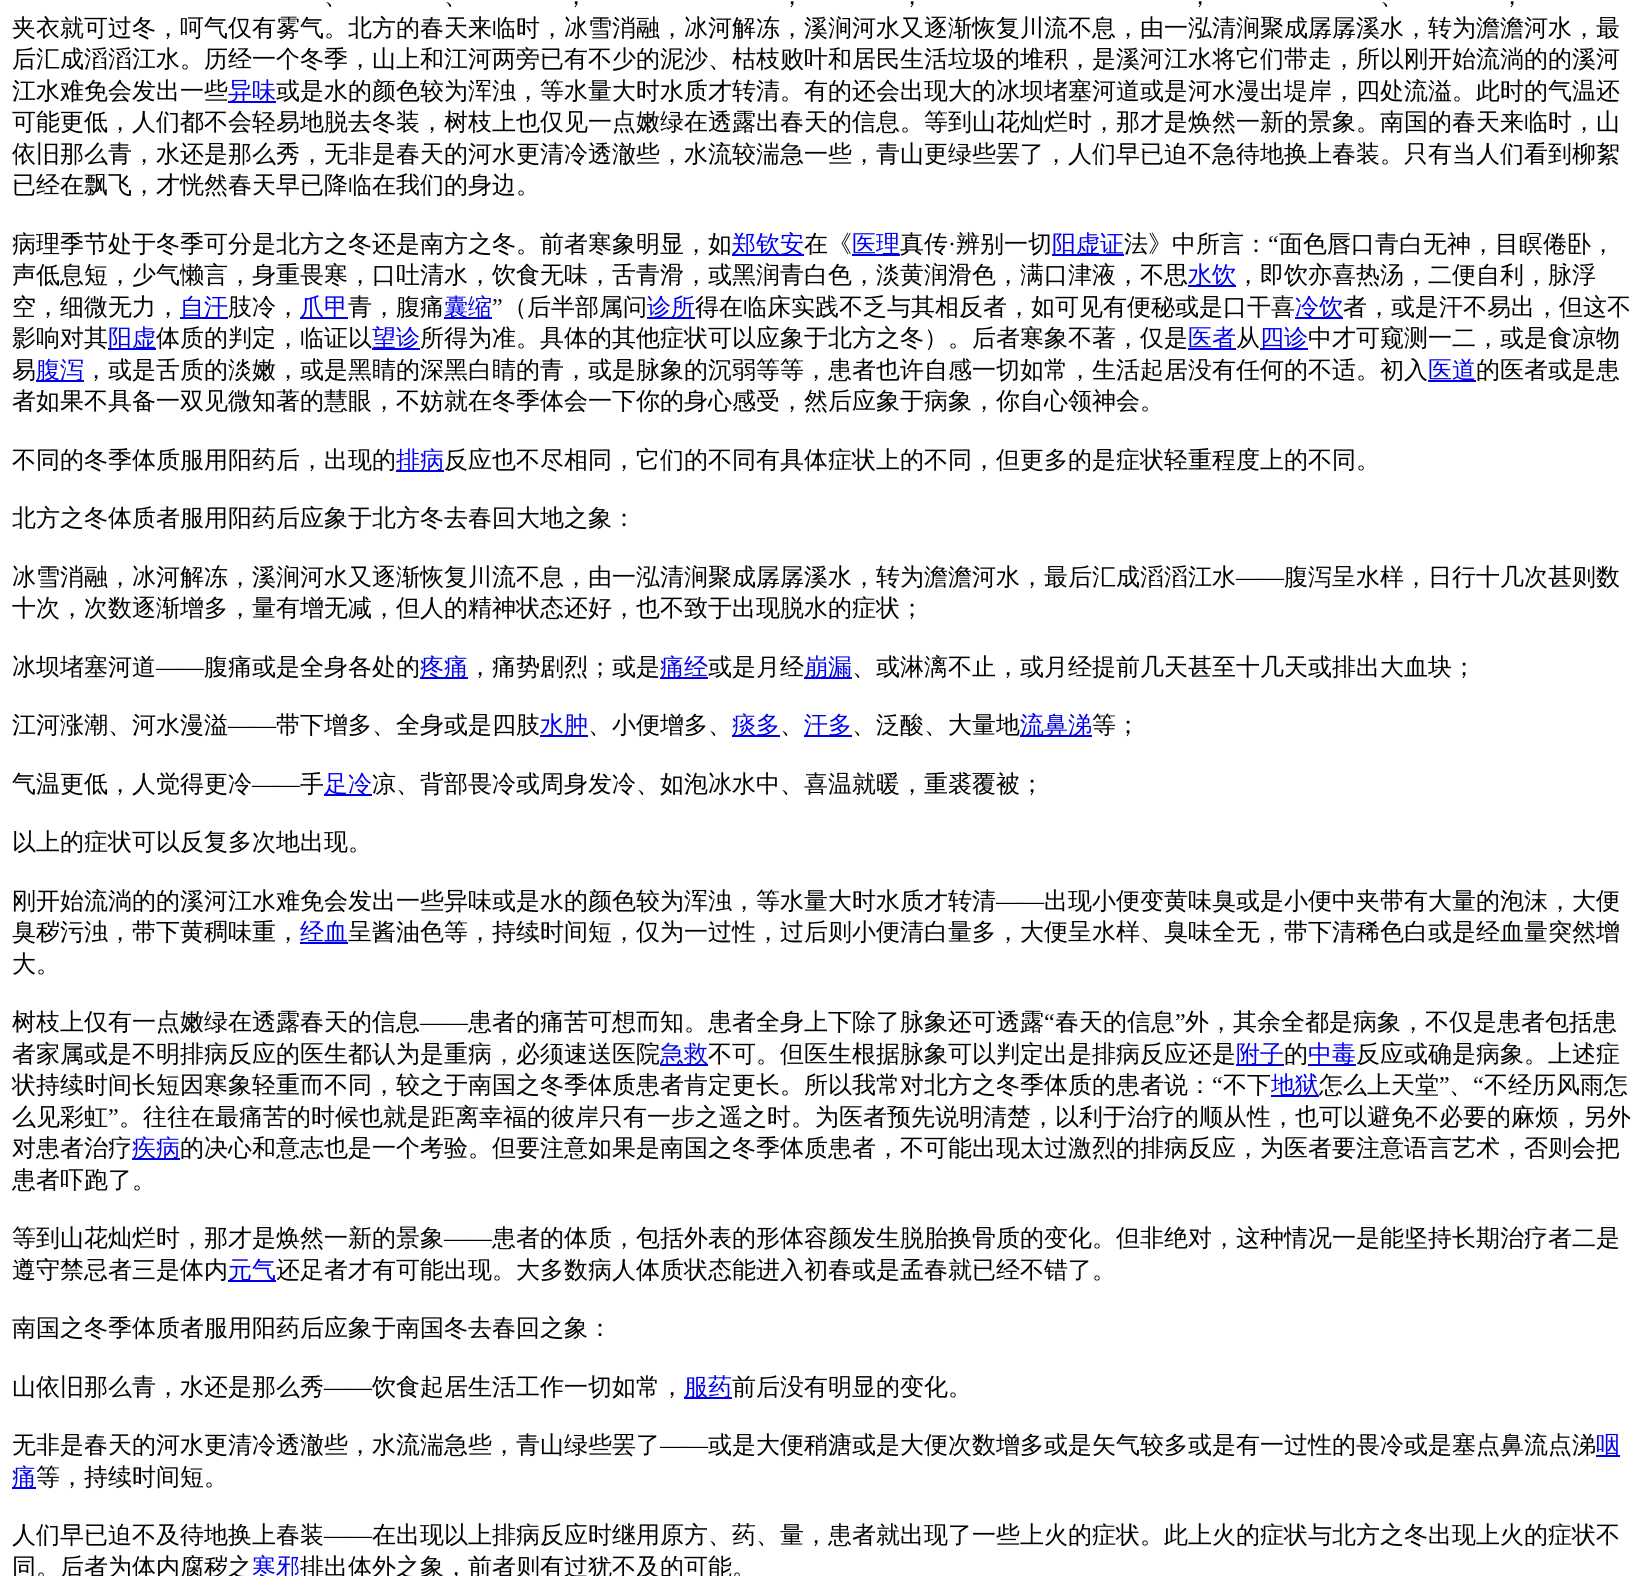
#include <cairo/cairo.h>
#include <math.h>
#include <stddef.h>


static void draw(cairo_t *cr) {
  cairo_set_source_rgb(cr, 1, 1, 1);
  cairo_paint(cr);
  cairo_set_source_rgb(cr, 0, 0, 238 / 255.0);
  cairo_rectangle(cr, 228, 101, 48, 2);
  cairo_fill(cr);
  cairo_rectangle(cr, 732, 254, 72, 2);
  cairo_fill(cr);
  cairo_rectangle(cr, 852, 254, 48, 2);
  cairo_fill(cr);
  cairo_rectangle(cr, 1052, 254, 72, 2);
  cairo_fill(cr);
  cairo_rectangle(cr, 1188, 285, 48, 2);
  cairo_fill(cr);
  cairo_rectangle(cr, 180, 317, 48, 2);
  cairo_fill(cr);
  cairo_rectangle(cr, 300, 317, 48, 2);
  cairo_fill(cr);
  cairo_rectangle(cr, 444, 317, 48, 2);
  cairo_fill(cr);
  cairo_rectangle(cr, 647, 317, 48, 2);
  cairo_fill(cr);
  cairo_rectangle(cr, 1295, 317, 48, 2);
  cairo_fill(cr);
  cairo_rectangle(cr, 108, 348, 48, 2);
  cairo_fill(cr);
  cairo_rectangle(cr, 372, 348, 48, 2);
  cairo_fill(cr);
  cairo_rectangle(cr, 1188, 348, 48, 2);
  cairo_fill(cr);
  cairo_rectangle(cr, 1260, 348, 48, 2);
  cairo_fill(cr);
  cairo_rectangle(cr, 36, 380, 48, 2);
  cairo_fill(cr);
  cairo_rectangle(cr, 1428, 380, 48, 2);
  cairo_fill(cr);
  cairo_rectangle(cr, 396, 470, 48, 2);
  cairo_fill(cr);
  cairo_rectangle(cr, 420, 677, 48, 2);
  cairo_fill(cr);
  cairo_rectangle(cr, 660, 677, 48, 2);
  cairo_fill(cr);
  cairo_rectangle(cr, 804, 677, 48, 2);
  cairo_fill(cr);
  cairo_rectangle(cr, 540, 735, 48, 2);
  cairo_fill(cr);
  cairo_rectangle(cr, 732, 735, 48, 2);
  cairo_fill(cr);
  cairo_rectangle(cr, 804, 735, 48, 2);
  cairo_fill(cr);
  cairo_rectangle(cr, 1020, 735, 72, 2);
  cairo_fill(cr);
  cairo_rectangle(cr, 324, 794, 48, 2);
  cairo_fill(cr);
  cairo_rectangle(cr, 300, 942, 48, 2);
  cairo_fill(cr);
  cairo_rectangle(cr, 660, 1064, 48, 2);
  cairo_fill(cr);
  cairo_rectangle(cr, 1236, 1064, 48, 2);
  cairo_fill(cr);
  cairo_rectangle(cr, 1308, 1064, 48, 2);
  cairo_fill(cr);
  cairo_rectangle(cr, 1271, 1095, 48, 2);
  cairo_fill(cr);
  cairo_rectangle(cr, 132, 1158, 48, 2);
  cairo_fill(cr);
  cairo_rectangle(cr, 228, 1280, 48, 2);
  cairo_fill(cr);
  cairo_rectangle(cr, 684, 1397, 48, 2);
  cairo_fill(cr);
  cairo_rectangle(cr, 1596, 1455, 24, 2);
  cairo_fill(cr);
  cairo_rectangle(cr, 12, 1487, 24, 2);
  cairo_fill(cr);
  cairo_select_font_face(cr, "WenQuanYi Zen Hei Medium", CAIRO_FONT_SLANT_NORMAL, CAIRO_FONT_WEIGHT_NORMAL);
  cairo_set_font_size(cr, 24);
  cairo_set_source_rgb(cr, 0, 0, 0);
  cairo_move_to(cr, 324, 4);
  cairo_show_text(cr, "、");
  cairo_move_to(cr, 444, 4);
  cairo_show_text(cr, "、");
  cairo_move_to(cr, 564, 4);
  cairo_show_text(cr, "，");
  cairo_move_to(cr, 780, 4);
  cairo_show_text(cr, "，");
  cairo_move_to(cr, 900, 4);
  cairo_show_text(cr, "，");
  cairo_move_to(cr, 1188, 4);
  cairo_show_text(cr, "，");
  cairo_move_to(cr, 1380, 4);
  cairo_show_text(cr, "、");
  cairo_move_to(cr, 1500, 4);
  cairo_show_text(cr, "，");
  cairo_move_to(cr, 12, 36);
  cairo_show_text(cr, "夹衣就可过冬，呵气仅有雾气。北方的春天来临时，冰雪消融，冰河解冻，溪涧河水又逐渐恢复川流不息，由一泓清涧聚成孱孱溪水，转为澹澹河水，最");
  cairo_move_to(cr, 12, 67);
  cairo_show_text(cr, "后汇成滔滔江水。历经一个冬季，山上和江河两旁已有不少的泥沙、枯枝败叶和居民生活垃圾的堆积，是溪河江水将它们带走，所以刚开始流淌的的溪河");
  cairo_move_to(cr, 12, 99);
  cairo_show_text(cr, "江水难免会发出一些");
  cairo_set_source_rgb(cr, 0, 0, 238 / 255.0);
  cairo_move_to(cr, 228, 99);
  cairo_show_text(cr, "异味");
  cairo_set_source_rgb(cr, 0, 0, 0);
  cairo_move_to(cr, 276, 99);
  cairo_show_text(cr, "或是水的颜色较为浑浊，等水量大时水质才转清。有的还会出现大的冰坝堵塞河道或是河水漫出堤岸，四处流溢。此时的气温还");
  cairo_move_to(cr, 12, 130);
  cairo_show_text(cr, "可能更低，人们都不会轻易地脱去冬装，树枝上也仅见一点嫩绿在透露出春天的信息。等到山花灿烂时，那才是焕然一新的景象。南国的春天来临时，山");
  cairo_move_to(cr, 12, 162);
  cairo_show_text(cr, "依旧那么青，水还是那么秀，无非是春天的河水更清冷透澈些，水流较湍急一些，青山更绿些罢了，人们早已迫不急待地换上春装。只有当人们看到柳絮");
  cairo_move_to(cr, 12, 193);
  cairo_show_text(cr, "已经在飘飞，才恍然春天早已降临在我们的身边。");
  cairo_move_to(cr, 12, 252);
  cairo_show_text(cr, "病理季节处于冬季可分是北方之冬还是南方之冬。前者寒象明显，如");
  cairo_set_source_rgb(cr, 0, 0, 238 / 255.0);
  cairo_move_to(cr, 732, 252);
  cairo_show_text(cr, "郑钦安");
  cairo_set_source_rgb(cr, 0, 0, 0);
  cairo_move_to(cr, 804, 252);
  cairo_show_text(cr, "在《");
  cairo_set_source_rgb(cr, 0, 0, 238 / 255.0);
  cairo_move_to(cr, 852, 252);
  cairo_show_text(cr, "医理");
  cairo_set_source_rgb(cr, 0, 0, 0);
  cairo_move_to(cr, 900, 252);
  cairo_show_text(cr, "真传");
  cairo_move_to(cr, 956, 252);
  cairo_show_text(cr, "辨别一切");
  cairo_set_source_rgb(cr, 0, 0, 238 / 255.0);
  cairo_move_to(cr, 1052, 252);
  cairo_show_text(cr, "阳虚证");
  cairo_set_source_rgb(cr, 0, 0, 0);
  cairo_move_to(cr, 1124, 252);
  cairo_show_text(cr, "法》中所言：");
  cairo_select_font_face(cr, "Liberation Serif", CAIRO_FONT_SLANT_NORMAL, CAIRO_FONT_WEIGHT_NORMAL);
  cairo_move_to(cr, 1268, 252);
  cairo_show_text(cr, "“");
  cairo_select_font_face(cr, "WenQuanYi Zen Hei Medium", CAIRO_FONT_SLANT_NORMAL, CAIRO_FONT_WEIGHT_NORMAL);
  cairo_move_to(cr, 1279, 252);
  cairo_show_text(cr, "面色唇口青白无神，目瞑倦卧，");
  cairo_select_font_face(cr, "Liberation Serif", CAIRO_FONT_SLANT_NORMAL, CAIRO_FONT_WEIGHT_NORMAL);
  cairo_move_to(cr, 948, 252);
  cairo_show_text(cr, "·");
  cairo_select_font_face(cr, "WenQuanYi Zen Hei Medium", CAIRO_FONT_SLANT_NORMAL, CAIRO_FONT_WEIGHT_NORMAL);
  cairo_move_to(cr, 12, 283);
  cairo_show_text(cr, "声低息短，少气懒言，身重畏寒，口吐清水，饮食无味，舌青滑，或黑润青白色，淡黄润滑色，满口津液，不思");
  cairo_set_source_rgb(cr, 0, 0, 238 / 255.0);
  cairo_move_to(cr, 1188, 283);
  cairo_show_text(cr, "水饮");
  cairo_set_source_rgb(cr, 0, 0, 0);
  cairo_move_to(cr, 1236, 283);
  cairo_show_text(cr, "，即饮亦喜热汤，二便自利，脉浮");
  cairo_move_to(cr, 12, 315);
  cairo_show_text(cr, "空，细微无力，");
  cairo_set_source_rgb(cr, 0, 0, 238 / 255.0);
  cairo_move_to(cr, 180, 315);
  cairo_show_text(cr, "自汗");
  cairo_set_source_rgb(cr, 0, 0, 0);
  cairo_move_to(cr, 228, 315);
  cairo_show_text(cr, "肢冷，");
  cairo_set_source_rgb(cr, 0, 0, 238 / 255.0);
  cairo_move_to(cr, 300, 315);
  cairo_show_text(cr, "爪甲");
  cairo_set_source_rgb(cr, 0, 0, 0);
  cairo_move_to(cr, 348, 315);
  cairo_show_text(cr, "青，腹痛");
  cairo_set_source_rgb(cr, 0, 0, 238 / 255.0);
  cairo_move_to(cr, 444, 315);
  cairo_show_text(cr, "囊缩");
  cairo_select_font_face(cr, "Liberation Serif", CAIRO_FONT_SLANT_NORMAL, CAIRO_FONT_WEIGHT_NORMAL);
  cairo_set_source_rgb(cr, 0, 0, 0);
  cairo_move_to(cr, 492, 315);
  cairo_show_text(cr, "”");
  cairo_select_font_face(cr, "WenQuanYi Zen Hei Medium", CAIRO_FONT_SLANT_NORMAL, CAIRO_FONT_WEIGHT_NORMAL);
  cairo_move_to(cr, 503, 315);
  cairo_show_text(cr, "（后半部属问");
  cairo_set_source_rgb(cr, 0, 0, 238 / 255.0);
  cairo_move_to(cr, 647, 315);
  cairo_show_text(cr, "诊所");
  cairo_set_source_rgb(cr, 0, 0, 0);
  cairo_move_to(cr, 695, 315);
  cairo_show_text(cr, "得在临床实践不乏与其相反者，如可见有便秘或是口干喜");
  cairo_set_source_rgb(cr, 0, 0, 238 / 255.0);
  cairo_move_to(cr, 1295, 315);
  cairo_show_text(cr, "冷饮");
  cairo_set_source_rgb(cr, 0, 0, 0);
  cairo_move_to(cr, 1343, 315);
  cairo_show_text(cr, "者，或是汗不易出，但这不");
  cairo_move_to(cr, 12, 346);
  cairo_show_text(cr, "影响对其");
  cairo_set_source_rgb(cr, 0, 0, 238 / 255.0);
  cairo_move_to(cr, 108, 346);
  cairo_show_text(cr, "阳虚");
  cairo_set_source_rgb(cr, 0, 0, 0);
  cairo_move_to(cr, 156, 346);
  cairo_show_text(cr, "体质的判定，临证以");
  cairo_set_source_rgb(cr, 0, 0, 238 / 255.0);
  cairo_move_to(cr, 372, 346);
  cairo_show_text(cr, "望诊");
  cairo_set_source_rgb(cr, 0, 0, 0);
  cairo_move_to(cr, 420, 346);
  cairo_show_text(cr, "所得为准。具体的其他症状可以应象于北方之冬）。后者寒象不著，仅是");
  cairo_set_source_rgb(cr, 0, 0, 238 / 255.0);
  cairo_move_to(cr, 1188, 346);
  cairo_show_text(cr, "医者");
  cairo_set_source_rgb(cr, 0, 0, 0);
  cairo_move_to(cr, 1236, 346);
  cairo_show_text(cr, "从");
  cairo_set_source_rgb(cr, 0, 0, 238 / 255.0);
  cairo_move_to(cr, 1260, 346);
  cairo_show_text(cr, "四诊");
  cairo_set_source_rgb(cr, 0, 0, 0);
  cairo_move_to(cr, 1308, 346);
  cairo_show_text(cr, "中才可窥测一二，或是食凉物");
  cairo_move_to(cr, 12, 378);
  cairo_show_text(cr, "易");
  cairo_set_source_rgb(cr, 0, 0, 238 / 255.0);
  cairo_move_to(cr, 36, 378);
  cairo_show_text(cr, "腹泻");
  cairo_set_source_rgb(cr, 0, 0, 0);
  cairo_move_to(cr, 84, 378);
  cairo_show_text(cr, "，或是舌质的淡嫩，或是黑睛的深黑白睛的青，或是脉象的沉弱等等，患者也许自感一切如常，生活起居没有任何的不适。初入");
  cairo_set_source_rgb(cr, 0, 0, 238 / 255.0);
  cairo_move_to(cr, 1428, 378);
  cairo_show_text(cr, "医道");
  cairo_set_source_rgb(cr, 0, 0, 0);
  cairo_move_to(cr, 1476, 378);
  cairo_show_text(cr, "的医者或是患");
  cairo_move_to(cr, 12, 409);
  cairo_show_text(cr, "者如果不具备一双见微知著的慧眼，不妨就在冬季体会一下你的身心感受，然后应象于病象，你自心领神会。");
  cairo_move_to(cr, 12, 468);
  cairo_show_text(cr, "不同的冬季体质服用阳药后，出现的");
  cairo_set_source_rgb(cr, 0, 0, 238 / 255.0);
  cairo_move_to(cr, 396, 468);
  cairo_show_text(cr, "排病");
  cairo_set_source_rgb(cr, 0, 0, 0);
  cairo_move_to(cr, 444, 468);
  cairo_show_text(cr, "反应也不尽相同，它们的不同有具体症状上的不同，但更多的是症状轻重程度上的不同。");
  cairo_move_to(cr, 12, 526);
  cairo_show_text(cr, "北方之冬体质者服用阳药后应象于北方冬去春回大地之象：");
  cairo_move_to(cr, 12, 585);
  cairo_show_text(cr, "冰雪消融，冰河解冻，溪涧河水又逐渐恢复川流不息，由一泓清涧聚成孱孱溪水，转为澹澹河水，最后汇成滔滔江水");
  cairo_select_font_face(cr, "Liberation Serif", CAIRO_FONT_SLANT_NORMAL, CAIRO_FONT_WEIGHT_NORMAL);
  cairo_move_to(cr, 1236, 585);
  cairo_show_text(cr, "——");
  cairo_select_font_face(cr, "WenQuanYi Zen Hei Medium", CAIRO_FONT_SLANT_NORMAL, CAIRO_FONT_WEIGHT_NORMAL);
  cairo_move_to(cr, 1284, 585);
  cairo_show_text(cr, "腹泻呈水样，日行十几次甚则数");
  cairo_move_to(cr, 12, 616);
  cairo_show_text(cr, "十次，次数逐渐增多，量有增无减，但人的精神状态还好，也不致于出现脱水的症状；");
  cairo_move_to(cr, 12, 675);
  cairo_show_text(cr, "冰坝堵塞河道");
  cairo_select_font_face(cr, "Liberation Serif", CAIRO_FONT_SLANT_NORMAL, CAIRO_FONT_WEIGHT_NORMAL);
  cairo_move_to(cr, 156, 675);
  cairo_show_text(cr, "——");
  cairo_select_font_face(cr, "WenQuanYi Zen Hei Medium", CAIRO_FONT_SLANT_NORMAL, CAIRO_FONT_WEIGHT_NORMAL);
  cairo_move_to(cr, 204, 675);
  cairo_show_text(cr, "腹痛或是全身各处的");
  cairo_set_source_rgb(cr, 0, 0, 238 / 255.0);
  cairo_move_to(cr, 420, 675);
  cairo_show_text(cr, "疼痛");
  cairo_set_source_rgb(cr, 0, 0, 0);
  cairo_move_to(cr, 468, 675);
  cairo_show_text(cr, "，痛势剧烈；或是");
  cairo_set_source_rgb(cr, 0, 0, 238 / 255.0);
  cairo_move_to(cr, 660, 675);
  cairo_show_text(cr, "痛经");
  cairo_set_source_rgb(cr, 0, 0, 0);
  cairo_move_to(cr, 708, 675);
  cairo_show_text(cr, "或是月经");
  cairo_set_source_rgb(cr, 0, 0, 238 / 255.0);
  cairo_move_to(cr, 804, 675);
  cairo_show_text(cr, "崩漏");
  cairo_set_source_rgb(cr, 0, 0, 0);
  cairo_move_to(cr, 852, 675);
  cairo_show_text(cr, "、或淋漓不止，或月经提前几天甚至十几天或排出大血块；");
  cairo_move_to(cr, 12, 733);
  cairo_show_text(cr, "江河涨潮、河水漫溢");
  cairo_select_font_face(cr, "Liberation Serif", CAIRO_FONT_SLANT_NORMAL, CAIRO_FONT_WEIGHT_NORMAL);
  cairo_move_to(cr, 228, 733);
  cairo_show_text(cr, "——");
  cairo_select_font_face(cr, "WenQuanYi Zen Hei Medium", CAIRO_FONT_SLANT_NORMAL, CAIRO_FONT_WEIGHT_NORMAL);
  cairo_move_to(cr, 276, 733);
  cairo_show_text(cr, "带下增多、全身或是四肢");
  cairo_set_source_rgb(cr, 0, 0, 238 / 255.0);
  cairo_move_to(cr, 540, 733);
  cairo_show_text(cr, "水肿");
  cairo_set_source_rgb(cr, 0, 0, 0);
  cairo_move_to(cr, 588, 733);
  cairo_show_text(cr, "、小便增多、");
  cairo_set_source_rgb(cr, 0, 0, 238 / 255.0);
  cairo_move_to(cr, 732, 733);
  cairo_show_text(cr, "痰多");
  cairo_move_to(cr, 804, 733);
  cairo_show_text(cr, "汗多");
  cairo_set_source_rgb(cr, 0, 0, 0);
  cairo_move_to(cr, 852, 733);
  cairo_show_text(cr, "、泛酸、大量地");
  cairo_set_source_rgb(cr, 0, 0, 238 / 255.0);
  cairo_move_to(cr, 1020, 733);
  cairo_show_text(cr, "流鼻涕");
  cairo_set_source_rgb(cr, 0, 0, 0);
  cairo_move_to(cr, 1092, 733);
  cairo_show_text(cr, "等；");
  cairo_move_to(cr, 780, 733);
  cairo_show_text(cr, "、");
  cairo_move_to(cr, 12, 792);
  cairo_show_text(cr, "气温更低，人觉得更冷");
  cairo_select_font_face(cr, "Liberation Serif", CAIRO_FONT_SLANT_NORMAL, CAIRO_FONT_WEIGHT_NORMAL);
  cairo_move_to(cr, 252, 792);
  cairo_show_text(cr, "——");
  cairo_select_font_face(cr, "WenQuanYi Zen Hei Medium", CAIRO_FONT_SLANT_NORMAL, CAIRO_FONT_WEIGHT_NORMAL);
  cairo_move_to(cr, 300, 792);
  cairo_show_text(cr, "手");
  cairo_set_source_rgb(cr, 0, 0, 238 / 255.0);
  cairo_move_to(cr, 324, 792);
  cairo_show_text(cr, "足冷");
  cairo_set_source_rgb(cr, 0, 0, 0);
  cairo_move_to(cr, 372, 792);
  cairo_show_text(cr, "凉、背部畏冷或周身发冷、如泡冰水中、喜温就暖，重裘覆被；");
  cairo_move_to(cr, 12, 850);
  cairo_show_text(cr, "以上的症状可以反复多次地出现。");
  cairo_move_to(cr, 12, 909);
  cairo_show_text(cr, "刚开始流淌的的溪河江水难免会发出一些异味或是水的颜色较为浑浊，等水量大时水质才转清");
  cairo_select_font_face(cr, "Liberation Serif", CAIRO_FONT_SLANT_NORMAL, CAIRO_FONT_WEIGHT_NORMAL);
  cairo_move_to(cr, 996, 909);
  cairo_show_text(cr, "——");
  cairo_select_font_face(cr, "WenQuanYi Zen Hei Medium", CAIRO_FONT_SLANT_NORMAL, CAIRO_FONT_WEIGHT_NORMAL);
  cairo_move_to(cr, 1044, 909);
  cairo_show_text(cr, "出现小便变黄味臭或是小便中夹带有大量的泡沫，大便");
  cairo_move_to(cr, 12, 940);
  cairo_show_text(cr, "臭秽污浊，带下黄稠味重，");
  cairo_set_source_rgb(cr, 0, 0, 238 / 255.0);
  cairo_move_to(cr, 300, 940);
  cairo_show_text(cr, "经血");
  cairo_set_source_rgb(cr, 0, 0, 0);
  cairo_move_to(cr, 348, 940);
  cairo_show_text(cr, "呈酱油色等，持续时间短，仅为一过性，过后则小便清白量多，大便呈水样、臭味全无，带下清稀色白或是经血量突然增");
  cairo_move_to(cr, 12, 972);
  cairo_show_text(cr, "大。");
  cairo_move_to(cr, 12, 1030);
  cairo_show_text(cr, "树枝上仅有一点嫩绿在透露春天的信息");
  cairo_select_font_face(cr, "Liberation Serif", CAIRO_FONT_SLANT_NORMAL, CAIRO_FONT_WEIGHT_NORMAL);
  cairo_move_to(cr, 1044, 1030);
  cairo_show_text(cr, "“");
  cairo_select_font_face(cr, "WenQuanYi Zen Hei Medium", CAIRO_FONT_SLANT_NORMAL, CAIRO_FONT_WEIGHT_NORMAL);
  cairo_move_to(cr, 1055, 1030);
  cairo_show_text(cr, "春天的信息");
  cairo_select_font_face(cr, "Liberation Serif", CAIRO_FONT_SLANT_NORMAL, CAIRO_FONT_WEIGHT_NORMAL);
  cairo_move_to(cr, 1175, 1030);
  cairo_show_text(cr, "”");
  cairo_select_font_face(cr, "WenQuanYi Zen Hei Medium", CAIRO_FONT_SLANT_NORMAL, CAIRO_FONT_WEIGHT_NORMAL);
  cairo_move_to(cr, 1185, 1030);
  cairo_show_text(cr, "外，其余全都是病象，不仅是患者包括患");
  cairo_select_font_face(cr, "Liberation Serif", CAIRO_FONT_SLANT_NORMAL, CAIRO_FONT_WEIGHT_NORMAL);
  cairo_move_to(cr, 420, 1030);
  cairo_show_text(cr, "——");
  cairo_select_font_face(cr, "WenQuanYi Zen Hei Medium", CAIRO_FONT_SLANT_NORMAL, CAIRO_FONT_WEIGHT_NORMAL);
  cairo_move_to(cr, 468, 1030);
  cairo_show_text(cr, "患者的痛苦可想而知。患者全身上下除了脉象还可透露");
  cairo_move_to(cr, 12, 1062);
  cairo_show_text(cr, "者家属或是不明排病反应的医生都认为是重病，必须速送医院");
  cairo_set_source_rgb(cr, 0, 0, 238 / 255.0);
  cairo_move_to(cr, 660, 1062);
  cairo_show_text(cr, "急救");
  cairo_set_source_rgb(cr, 0, 0, 0);
  cairo_move_to(cr, 708, 1062);
  cairo_show_text(cr, "不可。但医生根据脉象可以判定出是排病反应还是");
  cairo_set_source_rgb(cr, 0, 0, 238 / 255.0);
  cairo_move_to(cr, 1236, 1062);
  cairo_show_text(cr, "附子");
  cairo_set_source_rgb(cr, 0, 0, 0);
  cairo_move_to(cr, 1284, 1062);
  cairo_show_text(cr, "的");
  cairo_set_source_rgb(cr, 0, 0, 238 / 255.0);
  cairo_move_to(cr, 1308, 1062);
  cairo_show_text(cr, "中毒");
  cairo_set_source_rgb(cr, 0, 0, 0);
  cairo_move_to(cr, 1356, 1062);
  cairo_show_text(cr, "反应或确是病象。上述症");
  cairo_move_to(cr, 12, 1093);
  cairo_show_text(cr, "状持续时间长短因寒象轻重而不同，较之于南国之冬季体质患者肯定更长。所以我常对北方之冬季体质的患者说：");
  cairo_select_font_face(cr, "Liberation Serif", CAIRO_FONT_SLANT_NORMAL, CAIRO_FONT_WEIGHT_NORMAL);
  cairo_move_to(cr, 1212, 1093);
  cairo_show_text(cr, "“");
  cairo_select_font_face(cr, "WenQuanYi Zen Hei Medium", CAIRO_FONT_SLANT_NORMAL, CAIRO_FONT_WEIGHT_NORMAL);
  cairo_move_to(cr, 1223, 1093);
  cairo_show_text(cr, "不下");
  cairo_set_source_rgb(cr, 0, 0, 238 / 255.0);
  cairo_move_to(cr, 1271, 1093);
  cairo_show_text(cr, "地狱");
  cairo_set_source_rgb(cr, 0, 0, 0);
  cairo_move_to(cr, 1319, 1093);
  cairo_show_text(cr, "怎么上天堂");
  cairo_select_font_face(cr, "Liberation Serif", CAIRO_FONT_SLANT_NORMAL, CAIRO_FONT_WEIGHT_NORMAL);
  cairo_move_to(cr, 1439, 1093);
  cairo_show_text(cr, "”");
  cairo_move_to(cr, 1473, 1093);
  cairo_show_text(cr, "“");
  cairo_select_font_face(cr, "WenQuanYi Zen Hei Medium", CAIRO_FONT_SLANT_NORMAL, CAIRO_FONT_WEIGHT_NORMAL);
  cairo_move_to(cr, 1484, 1093);
  cairo_show_text(cr, "不经历风雨怎");
  cairo_move_to(cr, 1449, 1093);
  cairo_show_text(cr, "、");
  cairo_move_to(cr, 12, 1125);
  cairo_show_text(cr, "么见彩虹");
  cairo_select_font_face(cr, "Liberation Serif", CAIRO_FONT_SLANT_NORMAL, CAIRO_FONT_WEIGHT_NORMAL);
  cairo_move_to(cr, 108, 1125);
  cairo_show_text(cr, "”");
  cairo_select_font_face(cr, "WenQuanYi Zen Hei Medium", CAIRO_FONT_SLANT_NORMAL, CAIRO_FONT_WEIGHT_NORMAL);
  cairo_move_to(cr, 119, 1125);
  cairo_show_text(cr, "。往往在最痛苦的时候也就是距离幸福的彼岸只有一步之遥之时。为医者预先说明清楚，以利于治疗的顺从性，也可以避免不必要的麻烦，另外");
  cairo_move_to(cr, 12, 1156);
  cairo_show_text(cr, "对患者治疗");
  cairo_set_source_rgb(cr, 0, 0, 238 / 255.0);
  cairo_move_to(cr, 132, 1156);
  cairo_show_text(cr, "疾病");
  cairo_set_source_rgb(cr, 0, 0, 0);
  cairo_move_to(cr, 180, 1156);
  cairo_show_text(cr, "的决心和意志也是一个考验。但要注意如果是南国之冬季体质患者，不可能出现太过激烈的排病反应，为医者要注意语言艺术，否则会把");
  cairo_move_to(cr, 12, 1188);
  cairo_show_text(cr, "患者吓跑了。");
  cairo_move_to(cr, 12, 1246);
  cairo_show_text(cr, "等到山花灿烂时，那才是焕然一新的景象");
  cairo_select_font_face(cr, "Liberation Serif", CAIRO_FONT_SLANT_NORMAL, CAIRO_FONT_WEIGHT_NORMAL);
  cairo_move_to(cr, 444, 1246);
  cairo_show_text(cr, "——");
  cairo_select_font_face(cr, "WenQuanYi Zen Hei Medium", CAIRO_FONT_SLANT_NORMAL, CAIRO_FONT_WEIGHT_NORMAL);
  cairo_move_to(cr, 492, 1246);
  cairo_show_text(cr, "患者的体质，包括外表的形体容颜发生脱胎换骨质的变化。但非绝对，这种情况一是能坚持长期治疗者二是");
  cairo_move_to(cr, 12, 1278);
  cairo_show_text(cr, "遵守禁忌者三是体内");
  cairo_set_source_rgb(cr, 0, 0, 238 / 255.0);
  cairo_move_to(cr, 228, 1278);
  cairo_show_text(cr, "元气");
  cairo_set_source_rgb(cr, 0, 0, 0);
  cairo_move_to(cr, 276, 1278);
  cairo_show_text(cr, "还足者才有可能出现。大多数病人体质状态能进入初春或是孟春就已经不错了。");
  cairo_move_to(cr, 12, 1336);
  cairo_show_text(cr, "南国之冬季体质者服用阳药后应象于南国冬去春回之象：");
  cairo_move_to(cr, 12, 1395);
  cairo_show_text(cr, "山依旧那么青，水还是那么秀");
  cairo_select_font_face(cr, "Liberation Serif", CAIRO_FONT_SLANT_NORMAL, CAIRO_FONT_WEIGHT_NORMAL);
  cairo_move_to(cr, 324, 1395);
  cairo_show_text(cr, "——");
  cairo_select_font_face(cr, "WenQuanYi Zen Hei Medium", CAIRO_FONT_SLANT_NORMAL, CAIRO_FONT_WEIGHT_NORMAL);
  cairo_move_to(cr, 372, 1395);
  cairo_show_text(cr, "饮食起居生活工作一切如常，");
  cairo_set_source_rgb(cr, 0, 0, 238 / 255.0);
  cairo_move_to(cr, 684, 1395);
  cairo_show_text(cr, "服药");
  cairo_set_source_rgb(cr, 0, 0, 0);
  cairo_move_to(cr, 732, 1395);
  cairo_show_text(cr, "前后没有明显的变化。");
  cairo_move_to(cr, 12, 1453);
  cairo_show_text(cr, "无非是春天的河水更清冷透澈些，水流湍急些，青山绿些罢了");
  cairo_select_font_face(cr, "Liberation Serif", CAIRO_FONT_SLANT_NORMAL, CAIRO_FONT_WEIGHT_NORMAL);
  cairo_move_to(cr, 660, 1453);
  cairo_show_text(cr, "——");
  cairo_select_font_face(cr, "WenQuanYi Zen Hei Medium", CAIRO_FONT_SLANT_NORMAL, CAIRO_FONT_WEIGHT_NORMAL);
  cairo_move_to(cr, 708, 1453);
  cairo_show_text(cr, "或是大便稍溏或是大便次数增多或是矢气较多或是有一过性的畏冷或是塞点鼻流点涕");
  cairo_set_source_rgb(cr, 0, 0, 238 / 255.0);
  cairo_move_to(cr, 1596, 1453);
  cairo_show_text(cr, "咽");
  cairo_move_to(cr, 12, 1485);
  cairo_show_text(cr, "痛");
  cairo_set_source_rgb(cr, 0, 0, 0);
  cairo_move_to(cr, 36, 1485);
  cairo_show_text(cr, "等，持续时间短。");
  cairo_move_to(cr, 12, 1543);
  cairo_show_text(cr, "人们早已迫不及待地换上春装");
  cairo_select_font_face(cr, "Liberation Serif", CAIRO_FONT_SLANT_NORMAL, CAIRO_FONT_WEIGHT_NORMAL);
  cairo_move_to(cr, 324, 1543);
  cairo_show_text(cr, "——");
  cairo_select_font_face(cr, "WenQuanYi Zen Hei Medium", CAIRO_FONT_SLANT_NORMAL, CAIRO_FONT_WEIGHT_NORMAL);
  cairo_move_to(cr, 372, 1543);
  cairo_show_text(cr, "在出现以上排病反应时继用原方、药、量，患者就出现了一些上火的症状。此上火的症状与北方之冬出现上火的症状不");
  cairo_move_to(cr, 12, 1575);
  cairo_show_text(cr, "同。后者为体内腐秽之");
  cairo_set_source_rgb(cr, 0, 0, 238 / 255.0);
  cairo_move_to(cr, 252, 1575);
  cairo_show_text(cr, "寒邪");
  cairo_set_source_rgb(cr, 0, 0, 0);
  cairo_move_to(cr, 300, 1575);
  cairo_show_text(cr, "排出体外之象，前者则有过犹不及的可能。");
}

int main(void) {
  cairo_surface_t *surface = cairo_image_surface_create(CAIRO_FORMAT_RGB24, 1644, 1576);
  cairo_t *cr = cairo_create(surface);
  cairo_font_options_t *options = cairo_font_options_create();
  cairo_font_options_set_hint_metrics(options, CAIRO_HINT_METRICS_OFF);
  cairo_font_options_set_hint_style(options, CAIRO_HINT_STYLE_NONE);
  cairo_set_font_options(cr, options);
  cairo_set_miter_limit(cr, 4);
  draw(cr);
  cairo_surface_write_to_png(surface, "out.png");
  cairo_font_options_destroy(options);
  cairo_destroy(cr);
  cairo_surface_destroy(surface);
  return 0;
}
